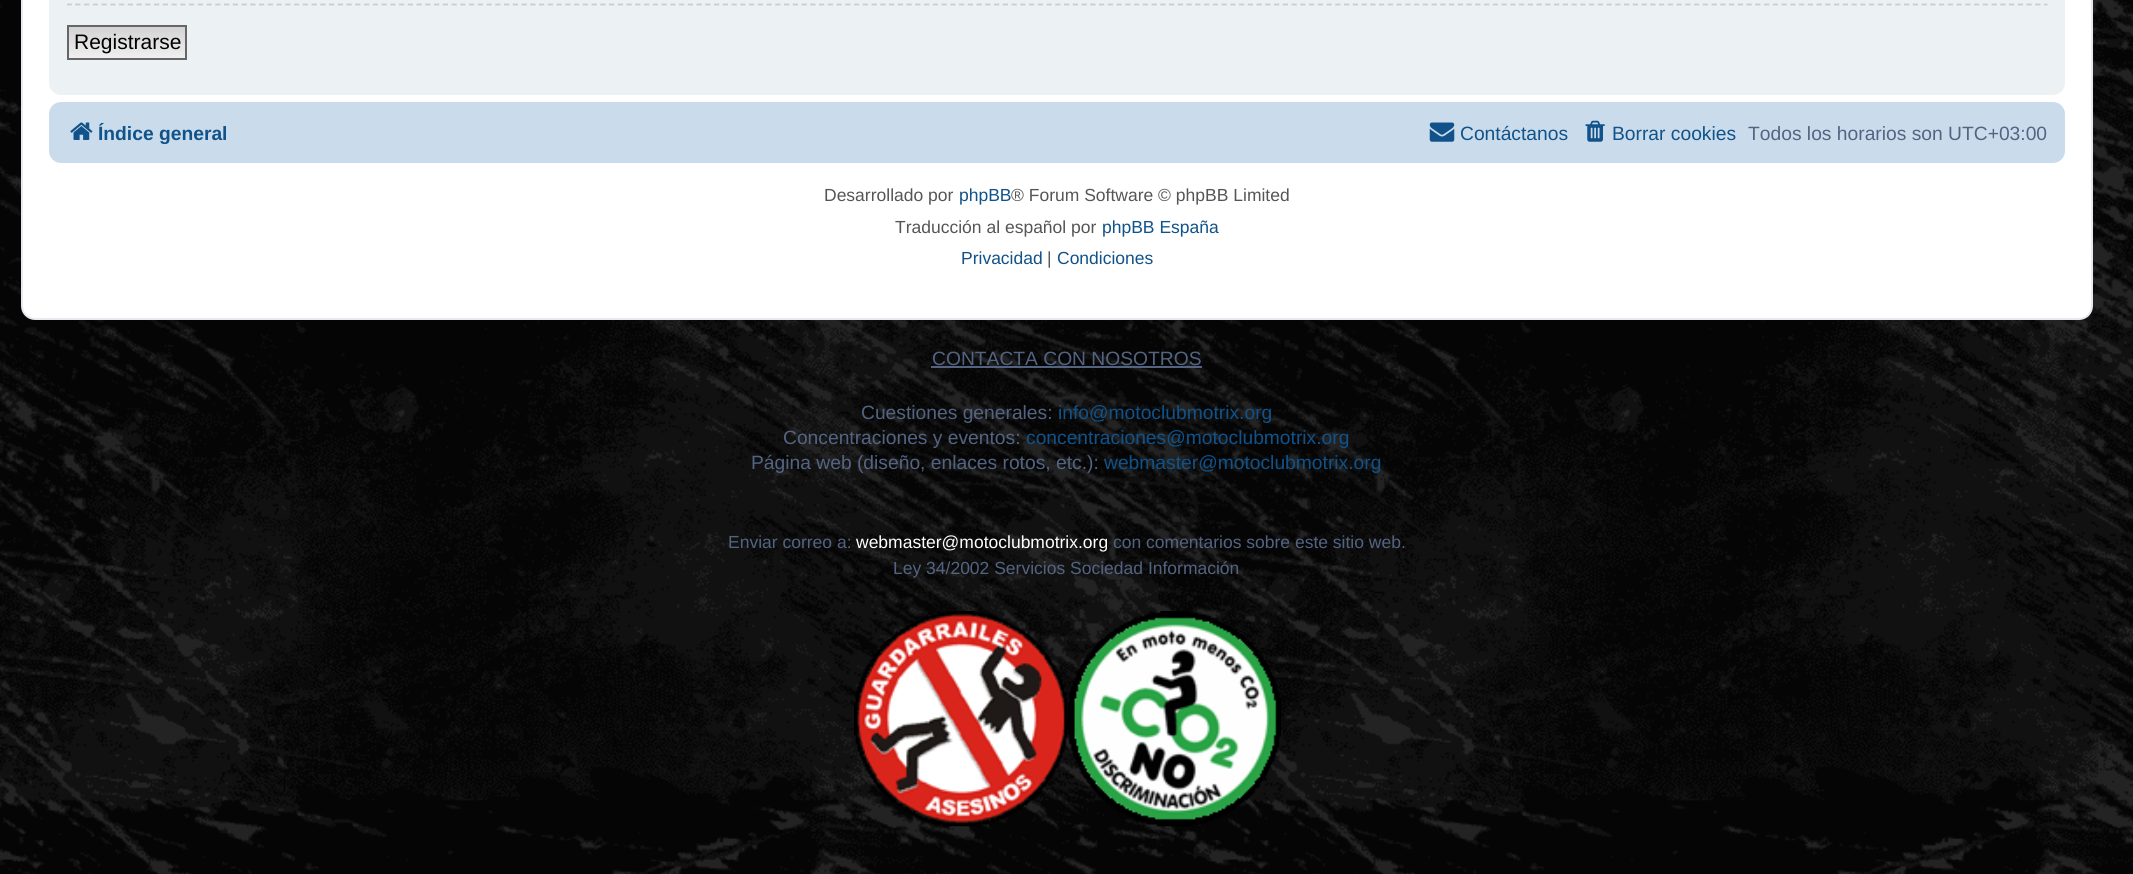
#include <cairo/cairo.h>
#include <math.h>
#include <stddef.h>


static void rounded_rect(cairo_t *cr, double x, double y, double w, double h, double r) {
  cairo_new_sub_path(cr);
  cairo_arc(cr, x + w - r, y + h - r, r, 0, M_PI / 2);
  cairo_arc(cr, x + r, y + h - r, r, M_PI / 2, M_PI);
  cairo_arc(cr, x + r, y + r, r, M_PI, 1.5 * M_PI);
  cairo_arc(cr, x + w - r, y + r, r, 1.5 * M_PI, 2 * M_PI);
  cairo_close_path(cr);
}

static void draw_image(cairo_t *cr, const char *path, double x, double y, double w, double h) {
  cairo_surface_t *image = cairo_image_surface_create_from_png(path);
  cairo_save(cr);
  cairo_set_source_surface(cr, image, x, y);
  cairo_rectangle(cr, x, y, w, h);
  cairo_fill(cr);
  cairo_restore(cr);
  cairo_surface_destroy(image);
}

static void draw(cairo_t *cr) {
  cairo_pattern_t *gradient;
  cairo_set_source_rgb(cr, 1, 1, 1);
  cairo_paint(cr);
  draw_image(cr, "images/1.png", 0, 0, 2133, 874);
  cairo_set_source_rgb(cr, 1, 1, 1);
  rounded_rect(cr, 22, -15, 2070, 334, 13);
  cairo_fill_preserve(cr);
  cairo_set_source_rgb(cr, 230 / 255.0, 233 / 255.0, 237 / 255.0);
  cairo_stroke(cr);
  cairo_set_source_rgb(cr, 236 / 255.0, 241 / 255.0, 243 / 255.0);
  rounded_rect(cr, 49, -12, 2016, 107, 12);
  cairo_fill(cr);
  cairo_save(cr);
  cairo_rectangle(cr, 67, 0, 1981, 86);
  cairo_clip(cr);
  cairo_new_path(cr);
  cairo_move_to(cr, 66.5, 4.5);
  cairo_line_to(cr, 2047.5, 4.5);
  cairo_set_source_rgb(cr, 204 / 255.0, 204 / 255.0, 204 / 255.0);
  cairo_set_line_width(cr, 1.8);
  cairo_set_dash(cr, (double[]){5.25, 3.5}, 2, 0);
  cairo_stroke(cr);
  cairo_restore(cr);
  gradient = cairo_pattern_create_linear(127, 26, 127, 58);
  cairo_pattern_add_color_stop_rgba(gradient, 0, 210 / 255.0, 210 / 255.0, 210 / 255.0, 1);
  cairo_pattern_add_color_stop_rgba(gradient, 1, 239 / 255.0, 239 / 255.0, 239 / 255.0, 1);
  cairo_set_source(cr, gradient);
  cairo_pattern_destroy(gradient);
  cairo_rectangle(cr, 69, 27, 116, 31);
  cairo_fill(cr);
  cairo_rectangle(cr, 68, 26, 118, 33);
  cairo_set_source_rgb(cr, 102 / 255.0, 102 / 255.0, 102 / 255.0);
  cairo_stroke(cr);
  cairo_set_source_rgb(cr, 202 / 255.0, 220 / 255.0, 235 / 255.0);
  rounded_rect(cr, 49, 102, 2016, 61, 12);
  cairo_fill(cr);
  draw_image(cr, "images/2.png", 70, 122, 23, 18);
  draw_image(cr, "images/3.png", 1429, 122, 26, 20);
  draw_image(cr, "images/4.png", 1585, 120, 20, 22);
  cairo_set_source_rgb(cr, 83 / 255.0, 100 / 255.0, 130 / 255.0);
  cairo_rectangle(cr, 931, 366, 271, 2);
  cairo_fill(cr);
  draw_image(cr, "images/5.png", 854, 611, 214, 216);
  draw_image(cr, "images/6.png", 1067, 611, 214, 216);
  cairo_select_font_face(cr, "Liberation Sans", CAIRO_FONT_SLANT_NORMAL, CAIRO_FONT_WEIGHT_NORMAL);
  cairo_set_font_size(cr, 21);
  cairo_set_source_rgb(cr, 0, 0, 0);
  cairo_move_to(cr, 74, 49);
  cairo_show_text(cr, "Registrarse");
  cairo_select_font_face(cr, "Liberation Sans", CAIRO_FONT_SLANT_NORMAL, CAIRO_FONT_WEIGHT_BOLD);
  cairo_set_font_size(cr, 19.25);
  cairo_set_source_rgb(cr, 16 / 255.0, 82 / 255.0, 137 / 255.0);
  cairo_move_to(cr, 98, 140);
  cairo_show_text(cr, "Índice general");
  cairo_select_font_face(cr, "Liberation Sans", CAIRO_FONT_SLANT_NORMAL, CAIRO_FONT_WEIGHT_NORMAL);
  cairo_move_to(cr, 1460, 140);
  cairo_show_text(cr, "Contáctanos");
  cairo_move_to(cr, 1612, 140);
  cairo_show_text(cr, "Borrar cookies");
  cairo_set_source_rgb(cr, 83 / 255.0, 100 / 255.0, 130 / 255.0);
  cairo_move_to(cr, 1748, 140);
  cairo_show_text(cr, "Todos los horarios son UTC+03:00");
  cairo_set_font_size(cr, 17.5);
  cairo_set_source_rgb(cr, 85 / 255.0, 85 / 255.0, 85 / 255.0);
  cairo_move_to(cr, 824, 201);
  cairo_show_text(cr, "Desarrollado por");
  cairo_set_source_rgb(cr, 16 / 255.0, 82 / 255.0, 137 / 255.0);
  cairo_move_to(cr, 959, 201);
  cairo_show_text(cr, "phpBB");
  cairo_set_source_rgb(cr, 85 / 255.0, 85 / 255.0, 85 / 255.0);
  cairo_move_to(cr, 1011, 201);
  cairo_show_text(cr, "® Forum Software © phpBB Limited");
  cairo_move_to(cr, 895, 233);
  cairo_show_text(cr, "Traducción al español por");
  cairo_set_source_rgb(cr, 16 / 255.0, 82 / 255.0, 137 / 255.0);
  cairo_move_to(cr, 1102, 233);
  cairo_show_text(cr, "phpBB España");
  cairo_move_to(cr, 961, 264);
  cairo_show_text(cr, "Privacidad");
  cairo_set_source_rgb(cr, 85 / 255.0, 85 / 255.0, 85 / 255.0);
  cairo_move_to(cr, 1047, 264);
  cairo_show_text(cr, "|");
  cairo_set_source_rgb(cr, 16 / 255.0, 82 / 255.0, 137 / 255.0);
  cairo_move_to(cr, 1057, 264);
  cairo_show_text(cr, "Condiciones");
  cairo_set_font_size(cr, 19.25);
  cairo_set_source_rgb(cr, 83 / 255.0, 100 / 255.0, 130 / 255.0);
  cairo_move_to(cr, 932, 365);
  cairo_show_text(cr, "CONTACTA CON NOSOTROS");
  cairo_move_to(cr, 861, 419);
  cairo_show_text(cr, "Cuestiones generales:");
  cairo_set_source_rgb(cr, 16 / 255.0, 82 / 255.0, 137 / 255.0);
  cairo_move_to(cr, 1058, 419);
  cairo_show_text(cr, "info@motoclubmotrix.org");
  cairo_set_source_rgb(cr, 83 / 255.0, 100 / 255.0, 130 / 255.0);
  cairo_move_to(cr, 783, 444);
  cairo_show_text(cr, "Concentraciones y eventos:");
  cairo_set_source_rgb(cr, 16 / 255.0, 82 / 255.0, 137 / 255.0);
  cairo_move_to(cr, 1026, 444);
  cairo_show_text(cr, "concentraciones@motoclubmotrix.org");
  cairo_set_source_rgb(cr, 83 / 255.0, 100 / 255.0, 130 / 255.0);
  cairo_move_to(cr, 751, 469);
  cairo_show_text(cr, "Página web (diseño, enlaces rotos, etc.):");
  cairo_set_source_rgb(cr, 16 / 255.0, 82 / 255.0, 137 / 255.0);
  cairo_move_to(cr, 1104, 469);
  cairo_show_text(cr, "webmaster@motoclubmotrix.org");
  cairo_set_font_size(cr, 17.5);
  cairo_set_source_rgb(cr, 83 / 255.0, 100 / 255.0, 130 / 255.0);
  cairo_move_to(cr, 728, 548);
  cairo_show_text(cr, "Enviar correo a:");
  cairo_set_source_rgb(cr, 1, 1, 1);
  cairo_move_to(cr, 856, 548);
  cairo_show_text(cr, "webmaster@motoclubmotrix.org");
  cairo_set_source_rgb(cr, 83 / 255.0, 100 / 255.0, 130 / 255.0);
  cairo_move_to(cr, 1113, 548);
  cairo_show_text(cr, "con comentarios sobre este sitio web.");
  cairo_move_to(cr, 893, 574);
  cairo_show_text(cr, "Ley 34/2002 Servicios Sociedad Información");
}

int main(void) {
  cairo_surface_t *surface = cairo_image_surface_create(CAIRO_FORMAT_RGB24, 2133, 874);
  cairo_t *cr = cairo_create(surface);
  cairo_font_options_t *options = cairo_font_options_create();
  cairo_font_options_set_hint_metrics(options, CAIRO_HINT_METRICS_OFF);
  cairo_font_options_set_hint_style(options, CAIRO_HINT_STYLE_NONE);
  cairo_set_font_options(cr, options);
  cairo_set_miter_limit(cr, 4);
  draw(cr);
  cairo_surface_write_to_png(surface, "out.png");
  cairo_font_options_destroy(options);
  cairo_destroy(cr);
  cairo_surface_destroy(surface);
  return 0;
}
